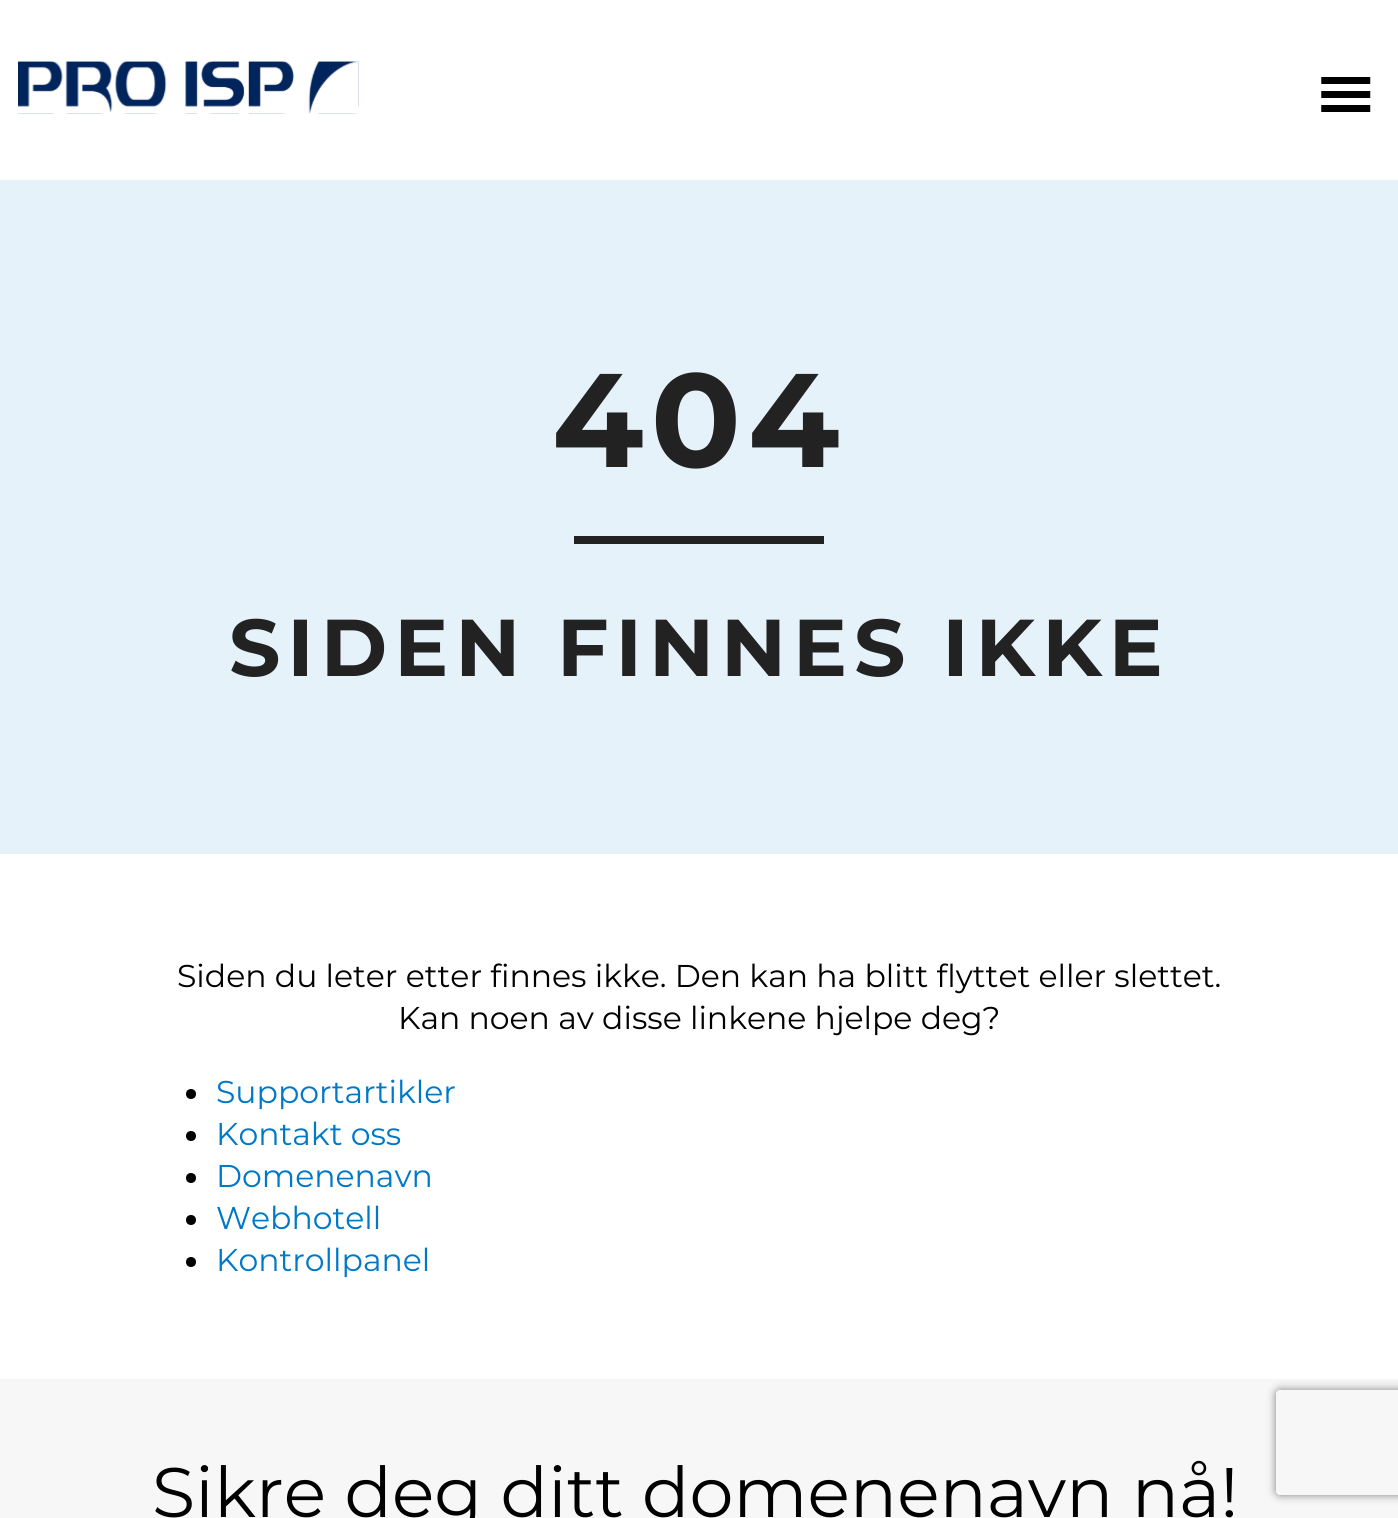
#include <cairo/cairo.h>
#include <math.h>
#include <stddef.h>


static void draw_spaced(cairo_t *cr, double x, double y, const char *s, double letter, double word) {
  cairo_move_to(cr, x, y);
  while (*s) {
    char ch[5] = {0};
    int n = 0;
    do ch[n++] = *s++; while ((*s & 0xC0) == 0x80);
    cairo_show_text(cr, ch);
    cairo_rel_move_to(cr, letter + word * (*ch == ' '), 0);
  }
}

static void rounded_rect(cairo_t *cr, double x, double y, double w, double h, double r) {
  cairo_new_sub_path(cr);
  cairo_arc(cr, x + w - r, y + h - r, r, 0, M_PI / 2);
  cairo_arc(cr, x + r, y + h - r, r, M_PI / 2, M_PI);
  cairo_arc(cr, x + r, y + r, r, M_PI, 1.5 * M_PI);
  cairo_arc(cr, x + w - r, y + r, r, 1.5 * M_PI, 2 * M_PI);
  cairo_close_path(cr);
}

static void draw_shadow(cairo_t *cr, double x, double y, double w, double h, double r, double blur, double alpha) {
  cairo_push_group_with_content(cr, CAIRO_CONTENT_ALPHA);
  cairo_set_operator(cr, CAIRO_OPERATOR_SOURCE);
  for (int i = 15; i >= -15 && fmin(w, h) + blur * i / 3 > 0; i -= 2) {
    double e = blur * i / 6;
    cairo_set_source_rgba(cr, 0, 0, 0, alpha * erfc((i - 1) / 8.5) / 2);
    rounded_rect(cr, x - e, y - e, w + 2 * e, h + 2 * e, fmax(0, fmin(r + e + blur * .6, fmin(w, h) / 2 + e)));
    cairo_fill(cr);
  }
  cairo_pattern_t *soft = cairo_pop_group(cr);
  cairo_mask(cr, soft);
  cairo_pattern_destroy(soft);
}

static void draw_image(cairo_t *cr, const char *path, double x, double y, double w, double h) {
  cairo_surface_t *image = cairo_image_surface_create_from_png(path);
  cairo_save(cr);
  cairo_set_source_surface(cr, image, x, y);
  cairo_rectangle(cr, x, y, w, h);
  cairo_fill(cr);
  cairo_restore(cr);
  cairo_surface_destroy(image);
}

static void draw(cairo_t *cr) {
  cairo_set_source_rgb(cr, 1, 1, 1);
  cairo_paint(cr);
  draw_image(cr, "images/1.png", 18, 61, 341, 53);
  draw_image(cr, "images/2.png", 1321, 77, 50, 35);
  cairo_set_source_rgb(cr, 230 / 255.0, 242 / 255.0, 250 / 255.0);
  cairo_rectangle(cr, 0, 180, 1398, 674);
  cairo_fill(cr);
  cairo_set_source_rgb(cr, 34 / 255.0, 34 / 255.0, 34 / 255.0);
  cairo_rectangle(cr, 574, 536, 250, 8);
  cairo_fill(cr);
  cairo_set_source_rgb(cr, 0, 0, 0);
  cairo_arc(cr, 191, 1094, 5, 0, 2 * M_PI);
  cairo_fill(cr);
  cairo_arc(cr, 191, 1136, 5, 0, 2 * M_PI);
  cairo_fill(cr);
  cairo_arc(cr, 191, 1178, 5, 0, 2 * M_PI);
  cairo_fill(cr);
  cairo_arc(cr, 191, 1220, 5, 0, 2 * M_PI);
  cairo_fill(cr);
  cairo_arc(cr, 191, 1262, 5, 0, 2 * M_PI);
  cairo_fill(cr);
  cairo_set_source_rgb(cr, 247 / 255.0, 247 / 255.0, 247 / 255.0);
  cairo_rectangle(cr, 0, 1379, 1398, 139);
  cairo_fill(cr);
  cairo_save(cr);
  cairo_set_fill_rule(cr, CAIRO_FILL_RULE_EVEN_ODD);
  cairo_new_path(cr);
  cairo_move_to(cr, 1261, 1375);
  cairo_line_to(cr, 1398, 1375);
  cairo_line_to(cr, 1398, 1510);
  cairo_line_to(cr, 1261, 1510);
  cairo_close_path(cr);
  cairo_move_to(cr, 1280, 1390);
  cairo_line_to(cr, 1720, 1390);
  cairo_curve_to(cr, 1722, 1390, 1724, 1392, 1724, 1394);
  cairo_line_to(cr, 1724, 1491);
  cairo_curve_to(cr, 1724, 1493, 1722, 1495, 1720, 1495);
  cairo_line_to(cr, 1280, 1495);
  cairo_curve_to(cr, 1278, 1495, 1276, 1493, 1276, 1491);
  cairo_line_to(cr, 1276, 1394);
  cairo_curve_to(cr, 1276, 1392, 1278, 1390, 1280, 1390);
  cairo_close_path(cr);
  cairo_clip(cr);
  cairo_set_source_rgb(cr, 128 / 255.0, 128 / 255.0, 128 / 255.0);
  draw_shadow(cr, 1276, 1390, 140, 105, 4, 4.5, 1);
  cairo_restore(cr);
  cairo_select_font_face(cr, "Montserrat", CAIRO_FONT_SLANT_NORMAL, CAIRO_FONT_WEIGHT_BOLD);
  cairo_set_font_size(cr, 133);
  cairo_set_source_rgb(cr, 34 / 255.0, 34 / 255.0, 34 / 255.0);
  draw_spaced(cr, 552, 467, "404", 7, 0);
  cairo_set_font_size(cr, 80.5);
  draw_spaced(cr, 229, 676, "SIDEN FINNES IKKE", 7, 0);
  cairo_select_font_face(cr, "Montserrat", CAIRO_FONT_SLANT_NORMAL, CAIRO_FONT_WEIGHT_NORMAL);
  cairo_set_font_size(cr, 31.5);
  cairo_set_source_rgb(cr, 0, 0, 0);
  cairo_move_to(cr, 177, 987);
  cairo_show_text(cr, "Siden du leter etter finnes ikke. Den kan ha blitt flyttet eller slettet.");
  cairo_move_to(cr, 398, 1029);
  cairo_show_text(cr, "Kan noen av disse linkene hjelpe deg?");
  cairo_set_source_rgb(cr, 0, 120 / 255.0, 200 / 255.0);
  cairo_move_to(cr, 216, 1103);
  cairo_show_text(cr, "Supportartikler");
  cairo_move_to(cr, 216, 1145);
  cairo_show_text(cr, "Kontakt oss");
  cairo_move_to(cr, 216, 1187);
  cairo_show_text(cr, "Domenenavn");
  cairo_move_to(cr, 216, 1229);
  cairo_show_text(cr, "Webhotell");
  cairo_move_to(cr, 216, 1271);
  cairo_show_text(cr, "Kontrollpanel");
  cairo_set_font_size(cr, 70);
  cairo_set_source_rgb(cr, 0, 0, 0);
  cairo_move_to(cr, 152, 1517);
  cairo_show_text(cr, "Sikre deg ditt domenenavn nå!");
}

int main(void) {
  cairo_surface_t *surface = cairo_image_surface_create(CAIRO_FORMAT_RGB24, 1398, 1518);
  cairo_t *cr = cairo_create(surface);
  cairo_font_options_t *options = cairo_font_options_create();
  cairo_font_options_set_hint_metrics(options, CAIRO_HINT_METRICS_OFF);
  cairo_font_options_set_hint_style(options, CAIRO_HINT_STYLE_NONE);
  cairo_set_font_options(cr, options);
  cairo_set_miter_limit(cr, 4);
  draw(cr);
  cairo_surface_write_to_png(surface, "out.png");
  cairo_font_options_destroy(options);
  cairo_destroy(cr);
  cairo_surface_destroy(surface);
  return 0;
}
